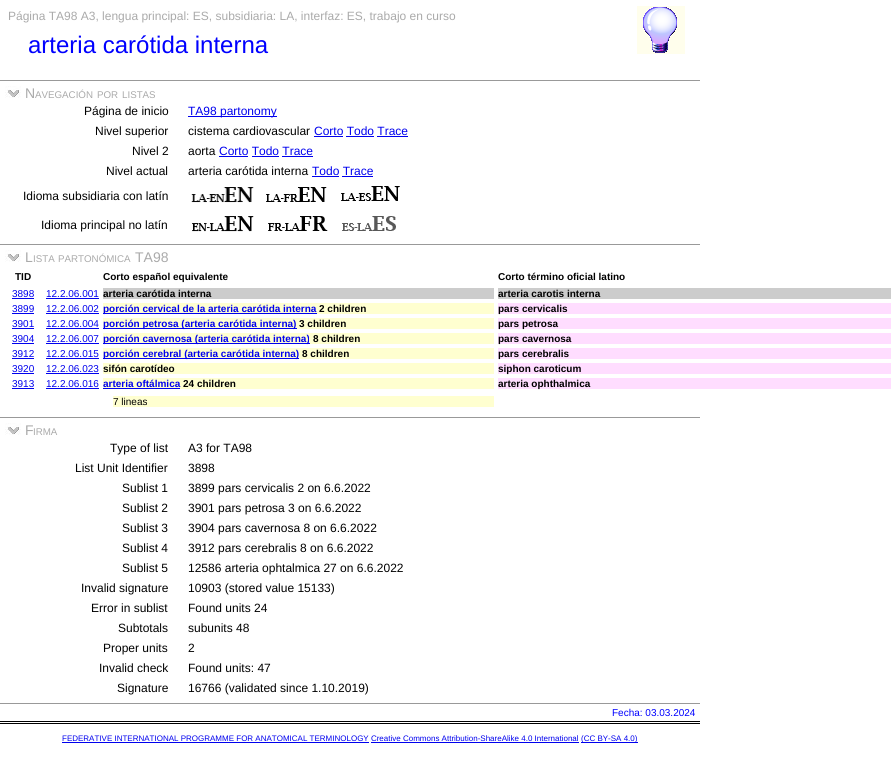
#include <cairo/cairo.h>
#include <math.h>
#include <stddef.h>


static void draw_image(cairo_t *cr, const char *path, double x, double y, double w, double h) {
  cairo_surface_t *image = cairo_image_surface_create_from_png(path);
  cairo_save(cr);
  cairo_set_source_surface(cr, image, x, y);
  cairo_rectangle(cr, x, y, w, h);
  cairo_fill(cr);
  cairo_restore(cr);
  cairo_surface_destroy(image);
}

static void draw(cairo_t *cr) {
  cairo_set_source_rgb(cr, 1, 1, 1);
  cairo_paint(cr);
  draw_image(cr, "images/1.png", 637, 6, 48, 48);
  cairo_set_source_rgb(cr, 153 / 255.0, 153 / 255.0, 153 / 255.0);
  cairo_rectangle(cr, 0, 80, 700, 1);
  cairo_fill(cr);
  draw_image(cr, "images/2.png", 5, 86, 16, 12);
  cairo_set_source_rgb(cr, 0, 0, 238 / 255.0);
  cairo_rectangle(cr, 188, 116, 89, 1);
  cairo_fill(cr);
  cairo_rectangle(cr, 314, 136, 29, 1);
  cairo_fill(cr);
  cairo_rectangle(cr, 346, 136, 28, 1);
  cairo_fill(cr);
  cairo_rectangle(cr, 377, 136, 31, 1);
  cairo_fill(cr);
  cairo_rectangle(cr, 219, 156, 29, 1);
  cairo_fill(cr);
  cairo_rectangle(cr, 252, 156, 27, 1);
  cairo_fill(cr);
  cairo_rectangle(cr, 282, 156, 31, 1);
  cairo_fill(cr);
  cairo_rectangle(cr, 312, 176, 27, 1);
  cairo_fill(cr);
  cairo_rectangle(cr, 342, 176, 31, 1);
  cairo_fill(cr);
  draw_image(cr, "images/3.png", 191, 187, 63, 16);
  draw_image(cr, "images/4.png", 266, 187, 61, 15);
  draw_image(cr, "images/5.png", 341, 186, 59, 15);
  draw_image(cr, "images/6.png", 192, 216, 62, 16);
  draw_image(cr, "images/7.png", 268, 216, 60, 15);
  draw_image(cr, "images/8.png", 342, 216, 54, 15);
  cairo_set_source_rgb(cr, 153 / 255.0, 153 / 255.0, 153 / 255.0);
  cairo_rectangle(cr, 0, 244, 700, 1);
  cairo_fill(cr);
  draw_image(cr, "images/2.png", 5, 250, 16, 12);
  cairo_set_source_rgb(cr, 0, 0, 238 / 255.0);
  cairo_rectangle(cr, 12, 298, 22, 1);
  cairo_fill(cr);
  cairo_rectangle(cr, 46, 298, 53, 1);
  cairo_fill(cr);
  cairo_set_source_rgb(cr, 204 / 255.0, 204 / 255.0, 204 / 255.0);
  cairo_rectangle(cr, 103, 288, 391, 11);
  cairo_fill(cr);
  cairo_rectangle(cr, 498, 288, 393, 11);
  cairo_fill(cr);
  cairo_set_source_rgb(cr, 0, 0, 238 / 255.0);
  cairo_rectangle(cr, 12, 313, 22, 1);
  cairo_fill(cr);
  cairo_rectangle(cr, 46, 313, 53, 1);
  cairo_fill(cr);
  cairo_set_source_rgb(cr, 1, 1, 208 / 255.0);
  cairo_rectangle(cr, 103, 303, 391, 11);
  cairo_fill(cr);
  cairo_set_source_rgb(cr, 0, 0, 238 / 255.0);
  cairo_rectangle(cr, 103, 313, 214, 1);
  cairo_fill(cr);
  cairo_set_source_rgb(cr, 1, 221 / 255.0, 1);
  cairo_rectangle(cr, 498, 303, 393, 11);
  cairo_fill(cr);
  cairo_set_source_rgb(cr, 0, 0, 238 / 255.0);
  cairo_rectangle(cr, 12, 328, 22, 1);
  cairo_fill(cr);
  cairo_rectangle(cr, 46, 328, 53, 1);
  cairo_fill(cr);
  cairo_set_source_rgb(cr, 1, 1, 208 / 255.0);
  cairo_rectangle(cr, 103, 318, 391, 11);
  cairo_fill(cr);
  cairo_set_source_rgb(cr, 0, 0, 238 / 255.0);
  cairo_rectangle(cr, 103, 328, 194, 1);
  cairo_fill(cr);
  cairo_set_source_rgb(cr, 1, 221 / 255.0, 1);
  cairo_rectangle(cr, 498, 318, 393, 11);
  cairo_fill(cr);
  cairo_set_source_rgb(cr, 0, 0, 238 / 255.0);
  cairo_rectangle(cr, 12, 343, 22, 1);
  cairo_fill(cr);
  cairo_rectangle(cr, 46, 343, 53, 1);
  cairo_fill(cr);
  cairo_set_source_rgb(cr, 1, 1, 208 / 255.0);
  cairo_rectangle(cr, 103, 333, 391, 11);
  cairo_fill(cr);
  cairo_set_source_rgb(cr, 0, 0, 238 / 255.0);
  cairo_rectangle(cr, 103, 343, 207, 1);
  cairo_fill(cr);
  cairo_set_source_rgb(cr, 1, 221 / 255.0, 1);
  cairo_rectangle(cr, 498, 333, 393, 11);
  cairo_fill(cr);
  cairo_set_source_rgb(cr, 0, 0, 238 / 255.0);
  cairo_rectangle(cr, 12, 358, 22, 1);
  cairo_fill(cr);
  cairo_rectangle(cr, 46, 358, 53, 1);
  cairo_fill(cr);
  cairo_set_source_rgb(cr, 1, 1, 208 / 255.0);
  cairo_rectangle(cr, 103, 348, 391, 11);
  cairo_fill(cr);
  cairo_set_source_rgb(cr, 0, 0, 238 / 255.0);
  cairo_rectangle(cr, 103, 358, 196, 1);
  cairo_fill(cr);
  cairo_set_source_rgb(cr, 1, 221 / 255.0, 1);
  cairo_rectangle(cr, 498, 348, 393, 11);
  cairo_fill(cr);
  cairo_set_source_rgb(cr, 0, 0, 238 / 255.0);
  cairo_rectangle(cr, 12, 373, 22, 1);
  cairo_fill(cr);
  cairo_rectangle(cr, 46, 373, 53, 1);
  cairo_fill(cr);
  cairo_set_source_rgb(cr, 1, 1, 208 / 255.0);
  cairo_rectangle(cr, 103, 363, 391, 11);
  cairo_fill(cr);
  cairo_set_source_rgb(cr, 1, 221 / 255.0, 1);
  cairo_rectangle(cr, 498, 363, 393, 11);
  cairo_fill(cr);
  cairo_set_source_rgb(cr, 0, 0, 238 / 255.0);
  cairo_rectangle(cr, 12, 388, 22, 1);
  cairo_fill(cr);
  cairo_rectangle(cr, 46, 388, 53, 1);
  cairo_fill(cr);
  cairo_set_source_rgb(cr, 1, 1, 208 / 255.0);
  cairo_rectangle(cr, 103, 378, 391, 11);
  cairo_fill(cr);
  cairo_set_source_rgb(cr, 0, 0, 238 / 255.0);
  cairo_rectangle(cr, 103, 388, 77, 1);
  cairo_fill(cr);
  cairo_set_source_rgb(cr, 1, 221 / 255.0, 1);
  cairo_rectangle(cr, 498, 378, 393, 11);
  cairo_fill(cr);
  cairo_set_source_rgb(cr, 1, 1, 208 / 255.0);
  cairo_rectangle(cr, 113, 396, 381, 11);
  cairo_fill(cr);
  cairo_set_source_rgb(cr, 153 / 255.0, 153 / 255.0, 153 / 255.0);
  cairo_rectangle(cr, 0, 417, 700, 1);
  cairo_fill(cr);
  draw_image(cr, "images/2.png", 5, 423, 16, 12);
  cairo_rectangle(cr, 0, 703, 700, 1);
  cairo_fill(cr);
  cairo_set_source_rgb(cr, 0, 0, 0);
  cairo_rectangle(cr, 0, 721, 700, 1);
  cairo_fill(cr);
  cairo_rectangle(cr, 0, 723, 700, 1);
  cairo_fill(cr);
  cairo_set_source_rgb(cr, 0, 0, 238 / 255.0);
  cairo_rectangle(cr, 62, 742, 307, 1);
  cairo_fill(cr);
  cairo_rectangle(cr, 581, 742, 57, 1);
  cairo_fill(cr);
  cairo_rectangle(cr, 371, 742, 208, 1);
  cairo_fill(cr);
  cairo_select_font_face(cr, "Liberation Sans", CAIRO_FONT_SLANT_NORMAL, CAIRO_FONT_WEIGHT_NORMAL);
  cairo_set_font_size(cr, 12);
  cairo_set_source_rgb(cr, 170 / 255.0, 170 / 255.0, 170 / 255.0);
  cairo_move_to(cr, 8, 20);
  cairo_show_text(cr, "Página TA98 A3, lengua principal: ES, subsidiaria: LA, interfaz: ES, trabajo en curso");
  cairo_set_font_size(cr, 24);
  cairo_set_source_rgb(cr, 0, 0, 1);
  cairo_move_to(cr, 28, 53);
  cairo_show_text(cr, "arteria carótida interna");
  cairo_set_font_size(cr, 14);
  cairo_set_source_rgb(cr, 170 / 255.0, 170 / 255.0, 170 / 255.0);
  cairo_move_to(cr, 25, 98);
  cairo_show_text(cr, "N");
  cairo_set_font_size(cr, 9.75);
  cairo_move_to(cr, 35, 98);
  cairo_show_text(cr, "AVEGACIÓN");
  cairo_move_to(cr, 97, 98);
  cairo_show_text(cr, "POR");
  cairo_move_to(cr, 122, 98);
  cairo_show_text(cr, "LISTAS");
  cairo_set_font_size(cr, 12);
  cairo_set_source_rgb(cr, 0, 0, 0);
  cairo_move_to(cr, 84, 115);
  cairo_show_text(cr, "Página de inicio");
  cairo_set_source_rgb(cr, 0, 0, 238 / 255.0);
  cairo_move_to(cr, 188, 115);
  cairo_show_text(cr, "TA98 partonomy");
  cairo_set_source_rgb(cr, 0, 0, 0);
  cairo_move_to(cr, 95, 135);
  cairo_show_text(cr, "Nivel superior");
  cairo_move_to(cr, 188, 135);
  cairo_show_text(cr, "cistema cardiovascular");
  cairo_set_source_rgb(cr, 0, 0, 238 / 255.0);
  cairo_move_to(cr, 314, 135);
  cairo_show_text(cr, "Corto Todo Trace");
  cairo_set_source_rgb(cr, 0, 0, 0);
  cairo_move_to(cr, 132, 155);
  cairo_show_text(cr, "Nivel 2");
  cairo_move_to(cr, 188, 155);
  cairo_show_text(cr, "aorta");
  cairo_set_source_rgb(cr, 0, 0, 238 / 255.0);
  cairo_move_to(cr, 219, 155);
  cairo_show_text(cr, "Corto Todo Trace");
  cairo_set_source_rgb(cr, 0, 0, 0);
  cairo_move_to(cr, 106, 175);
  cairo_show_text(cr, "Nivel actual");
  cairo_move_to(cr, 188, 175);
  cairo_show_text(cr, "arteria carótida interna");
  cairo_set_source_rgb(cr, 0, 0, 238 / 255.0);
  cairo_move_to(cr, 312, 175);
  cairo_show_text(cr, "Todo Trace");
  cairo_set_source_rgb(cr, 0, 0, 0);
  cairo_move_to(cr, 23, 200);
  cairo_show_text(cr, "Idioma subsidiaria con latín");
  cairo_move_to(cr, 41, 229);
  cairo_show_text(cr, "Idioma principal no latín");
  cairo_set_font_size(cr, 14);
  cairo_set_source_rgb(cr, 170 / 255.0, 170 / 255.0, 170 / 255.0);
  cairo_move_to(cr, 25, 262);
  cairo_show_text(cr, "L");
  cairo_set_font_size(cr, 9.75);
  cairo_move_to(cr, 33, 262);
  cairo_show_text(cr, "ISTA");
  cairo_move_to(cr, 58, 262);
  cairo_show_text(cr, "PARTONÓMICA");
  cairo_set_font_size(cr, 14);
  cairo_move_to(cr, 135, 262);
  cairo_show_text(cr, "TA98");
  cairo_select_font_face(cr, "Liberation Sans", CAIRO_FONT_SLANT_NORMAL, CAIRO_FONT_WEIGHT_BOLD);
  cairo_set_font_size(cr, 10);
  cairo_set_source_rgb(cr, 0, 0, 0);
  cairo_move_to(cr, 15, 280);
  cairo_show_text(cr, "TID");
  cairo_move_to(cr, 103, 280);
  cairo_show_text(cr, "Corto español equivalente");
  cairo_move_to(cr, 498, 280);
  cairo_show_text(cr, "Corto término oficial latino");
  cairo_select_font_face(cr, "Liberation Sans", CAIRO_FONT_SLANT_NORMAL, CAIRO_FONT_WEIGHT_NORMAL);
  cairo_set_source_rgb(cr, 0, 0, 238 / 255.0);
  cairo_move_to(cr, 12, 297);
  cairo_show_text(cr, "3898");
  cairo_move_to(cr, 46, 297);
  cairo_show_text(cr, "12.2.06.001");
  cairo_select_font_face(cr, "Liberation Sans", CAIRO_FONT_SLANT_NORMAL, CAIRO_FONT_WEIGHT_BOLD);
  cairo_set_source_rgb(cr, 0, 0, 0);
  cairo_move_to(cr, 103, 297);
  cairo_show_text(cr, "arteria carótida interna");
  cairo_move_to(cr, 498, 297);
  cairo_show_text(cr, "arteria carotis interna");
  cairo_select_font_face(cr, "Liberation Sans", CAIRO_FONT_SLANT_NORMAL, CAIRO_FONT_WEIGHT_NORMAL);
  cairo_set_source_rgb(cr, 0, 0, 238 / 255.0);
  cairo_move_to(cr, 12, 312);
  cairo_show_text(cr, "3899");
  cairo_move_to(cr, 46, 312);
  cairo_show_text(cr, "12.2.06.002");
  cairo_select_font_face(cr, "Liberation Sans", CAIRO_FONT_SLANT_NORMAL, CAIRO_FONT_WEIGHT_BOLD);
  cairo_move_to(cr, 103, 312);
  cairo_show_text(cr, "porción cervical de la arteria carótida interna");
  cairo_set_source_rgb(cr, 0, 0, 0);
  cairo_move_to(cr, 319, 312);
  cairo_show_text(cr, "2 children");
  cairo_move_to(cr, 498, 312);
  cairo_show_text(cr, "pars cervicalis");
  cairo_select_font_face(cr, "Liberation Sans", CAIRO_FONT_SLANT_NORMAL, CAIRO_FONT_WEIGHT_NORMAL);
  cairo_set_source_rgb(cr, 0, 0, 238 / 255.0);
  cairo_move_to(cr, 12, 327);
  cairo_show_text(cr, "3901");
  cairo_move_to(cr, 46, 327);
  cairo_show_text(cr, "12.2.06.004");
  cairo_select_font_face(cr, "Liberation Sans", CAIRO_FONT_SLANT_NORMAL, CAIRO_FONT_WEIGHT_BOLD);
  cairo_move_to(cr, 103, 327);
  cairo_show_text(cr, "porción petrosa (arteria carótida interna)");
  cairo_set_source_rgb(cr, 0, 0, 0);
  cairo_move_to(cr, 299, 327);
  cairo_show_text(cr, "3 children");
  cairo_move_to(cr, 498, 327);
  cairo_show_text(cr, "pars petrosa");
  cairo_select_font_face(cr, "Liberation Sans", CAIRO_FONT_SLANT_NORMAL, CAIRO_FONT_WEIGHT_NORMAL);
  cairo_set_source_rgb(cr, 0, 0, 238 / 255.0);
  cairo_move_to(cr, 12, 342);
  cairo_show_text(cr, "3904");
  cairo_move_to(cr, 46, 342);
  cairo_show_text(cr, "12.2.06.007");
  cairo_select_font_face(cr, "Liberation Sans", CAIRO_FONT_SLANT_NORMAL, CAIRO_FONT_WEIGHT_BOLD);
  cairo_move_to(cr, 103, 342);
  cairo_show_text(cr, "porción cavernosa (arteria carótida interna)");
  cairo_set_source_rgb(cr, 0, 0, 0);
  cairo_move_to(cr, 313, 342);
  cairo_show_text(cr, "8 children");
  cairo_move_to(cr, 498, 342);
  cairo_show_text(cr, "pars cavernosa");
  cairo_select_font_face(cr, "Liberation Sans", CAIRO_FONT_SLANT_NORMAL, CAIRO_FONT_WEIGHT_NORMAL);
  cairo_set_source_rgb(cr, 0, 0, 238 / 255.0);
  cairo_move_to(cr, 12, 357);
  cairo_show_text(cr, "3912");
  cairo_move_to(cr, 46, 357);
  cairo_show_text(cr, "12.2.06.015");
  cairo_select_font_face(cr, "Liberation Sans", CAIRO_FONT_SLANT_NORMAL, CAIRO_FONT_WEIGHT_BOLD);
  cairo_move_to(cr, 103, 357);
  cairo_show_text(cr, "porción cerebral (arteria carótida interna)");
  cairo_set_source_rgb(cr, 0, 0, 0);
  cairo_move_to(cr, 302, 357);
  cairo_show_text(cr, "8 children");
  cairo_move_to(cr, 498, 357);
  cairo_show_text(cr, "pars cerebralis");
  cairo_select_font_face(cr, "Liberation Sans", CAIRO_FONT_SLANT_NORMAL, CAIRO_FONT_WEIGHT_NORMAL);
  cairo_set_source_rgb(cr, 0, 0, 238 / 255.0);
  cairo_move_to(cr, 12, 372);
  cairo_show_text(cr, "3920");
  cairo_move_to(cr, 46, 372);
  cairo_show_text(cr, "12.2.06.023");
  cairo_select_font_face(cr, "Liberation Sans", CAIRO_FONT_SLANT_NORMAL, CAIRO_FONT_WEIGHT_BOLD);
  cairo_set_source_rgb(cr, 0, 0, 0);
  cairo_move_to(cr, 103, 372);
  cairo_show_text(cr, "sifón carotídeo");
  cairo_move_to(cr, 498, 372);
  cairo_show_text(cr, "siphon caroticum");
  cairo_select_font_face(cr, "Liberation Sans", CAIRO_FONT_SLANT_NORMAL, CAIRO_FONT_WEIGHT_NORMAL);
  cairo_set_source_rgb(cr, 0, 0, 238 / 255.0);
  cairo_move_to(cr, 12, 387);
  cairo_show_text(cr, "3913");
  cairo_move_to(cr, 46, 387);
  cairo_show_text(cr, "12.2.06.016");
  cairo_select_font_face(cr, "Liberation Sans", CAIRO_FONT_SLANT_NORMAL, CAIRO_FONT_WEIGHT_BOLD);
  cairo_move_to(cr, 103, 387);
  cairo_show_text(cr, "arteria oftálmica");
  cairo_set_source_rgb(cr, 0, 0, 0);
  cairo_move_to(cr, 183, 387);
  cairo_show_text(cr, "24 children");
  cairo_move_to(cr, 498, 387);
  cairo_show_text(cr, "arteria ophthalmica");
  cairo_select_font_face(cr, "Liberation Sans", CAIRO_FONT_SLANT_NORMAL, CAIRO_FONT_WEIGHT_NORMAL);
  cairo_move_to(cr, 113, 405);
  cairo_show_text(cr, "7 lineas");
  cairo_set_font_size(cr, 14);
  cairo_set_source_rgb(cr, 170 / 255.0, 170 / 255.0, 170 / 255.0);
  cairo_move_to(cr, 25, 435);
  cairo_show_text(cr, "F");
  cairo_set_font_size(cr, 9.75);
  cairo_move_to(cr, 33, 435);
  cairo_show_text(cr, "IRMA");
  cairo_set_font_size(cr, 12);
  cairo_set_source_rgb(cr, 0, 0, 0);
  cairo_move_to(cr, 110, 452);
  cairo_show_text(cr, "Type of list");
  cairo_move_to(cr, 188, 452);
  cairo_show_text(cr, "A3 for TA98");
  cairo_move_to(cr, 75, 472);
  cairo_show_text(cr, "List Unit Identifier");
  cairo_move_to(cr, 188, 472);
  cairo_show_text(cr, "3898");
  cairo_move_to(cr, 122, 492);
  cairo_show_text(cr, "Sublist 1");
  cairo_move_to(cr, 188, 492);
  cairo_show_text(cr, "3899 pars cervicalis 2 on 6.6.2022");
  cairo_move_to(cr, 122, 512);
  cairo_show_text(cr, "Sublist 2");
  cairo_move_to(cr, 188, 512);
  cairo_show_text(cr, "3901 pars petrosa 3 on 6.6.2022");
  cairo_move_to(cr, 122, 532);
  cairo_show_text(cr, "Sublist 3");
  cairo_move_to(cr, 188, 532);
  cairo_show_text(cr, "3904 pars cavernosa 8 on 6.6.2022");
  cairo_move_to(cr, 122, 552);
  cairo_show_text(cr, "Sublist 4");
  cairo_move_to(cr, 188, 552);
  cairo_show_text(cr, "3912 pars cerebralis 8 on 6.6.2022");
  cairo_move_to(cr, 122, 572);
  cairo_show_text(cr, "Sublist 5");
  cairo_move_to(cr, 188, 572);
  cairo_show_text(cr, "12586 arteria ophtalmica 27 on 6.6.2022");
  cairo_move_to(cr, 81, 592);
  cairo_show_text(cr, "Invalid signature");
  cairo_move_to(cr, 188, 592);
  cairo_show_text(cr, "10903 (stored value 15133)");
  cairo_move_to(cr, 91, 612);
  cairo_show_text(cr, "Error in sublist");
  cairo_move_to(cr, 188, 612);
  cairo_show_text(cr, "Found units 24");
  cairo_move_to(cr, 118, 632);
  cairo_show_text(cr, "Subtotals");
  cairo_move_to(cr, 188, 632);
  cairo_show_text(cr, "subunits 48");
  cairo_move_to(cr, 103, 652);
  cairo_show_text(cr, "Proper units");
  cairo_move_to(cr, 188, 652);
  cairo_show_text(cr, "2");
  cairo_move_to(cr, 99, 672);
  cairo_show_text(cr, "Invalid check");
  cairo_move_to(cr, 188, 672);
  cairo_show_text(cr, "Found units: 47");
  cairo_move_to(cr, 117, 692);
  cairo_show_text(cr, "Signature");
  cairo_move_to(cr, 188, 692);
  cairo_show_text(cr, "16766 (validated since 1.10.2019)");
  cairo_set_font_size(cr, 10);
  cairo_set_source_rgb(cr, 0, 0, 1);
  cairo_move_to(cr, 612, 716);
  cairo_show_text(cr, "Fecha: 03.03.2024");
  cairo_set_font_size(cr, 8);
  cairo_set_source_rgb(cr, 0, 0, 238 / 255.0);
  cairo_move_to(cr, 62, 741);
  cairo_show_text(cr, "FEDERATIVE INTERNATIONAL PROGRAMME FOR ANATOMICAL TERMINOLOGY Creative Commons Attribution-ShareAlike 4.0 International");
  cairo_move_to(cr, 581, 741);
  cairo_show_text(cr, "(CC BY-SA 4.0)");
}

int main(void) {
  cairo_surface_t *surface = cairo_image_surface_create(CAIRO_FORMAT_RGB24, 894, 766);
  cairo_t *cr = cairo_create(surface);
  cairo_font_options_t *options = cairo_font_options_create();
  cairo_font_options_set_hint_metrics(options, CAIRO_HINT_METRICS_OFF);
  cairo_font_options_set_hint_style(options, CAIRO_HINT_STYLE_NONE);
  cairo_set_font_options(cr, options);
  cairo_set_miter_limit(cr, 4);
  draw(cr);
  cairo_surface_write_to_png(surface, "out.png");
  cairo_font_options_destroy(options);
  cairo_destroy(cr);
  cairo_surface_destroy(surface);
  return 0;
}
